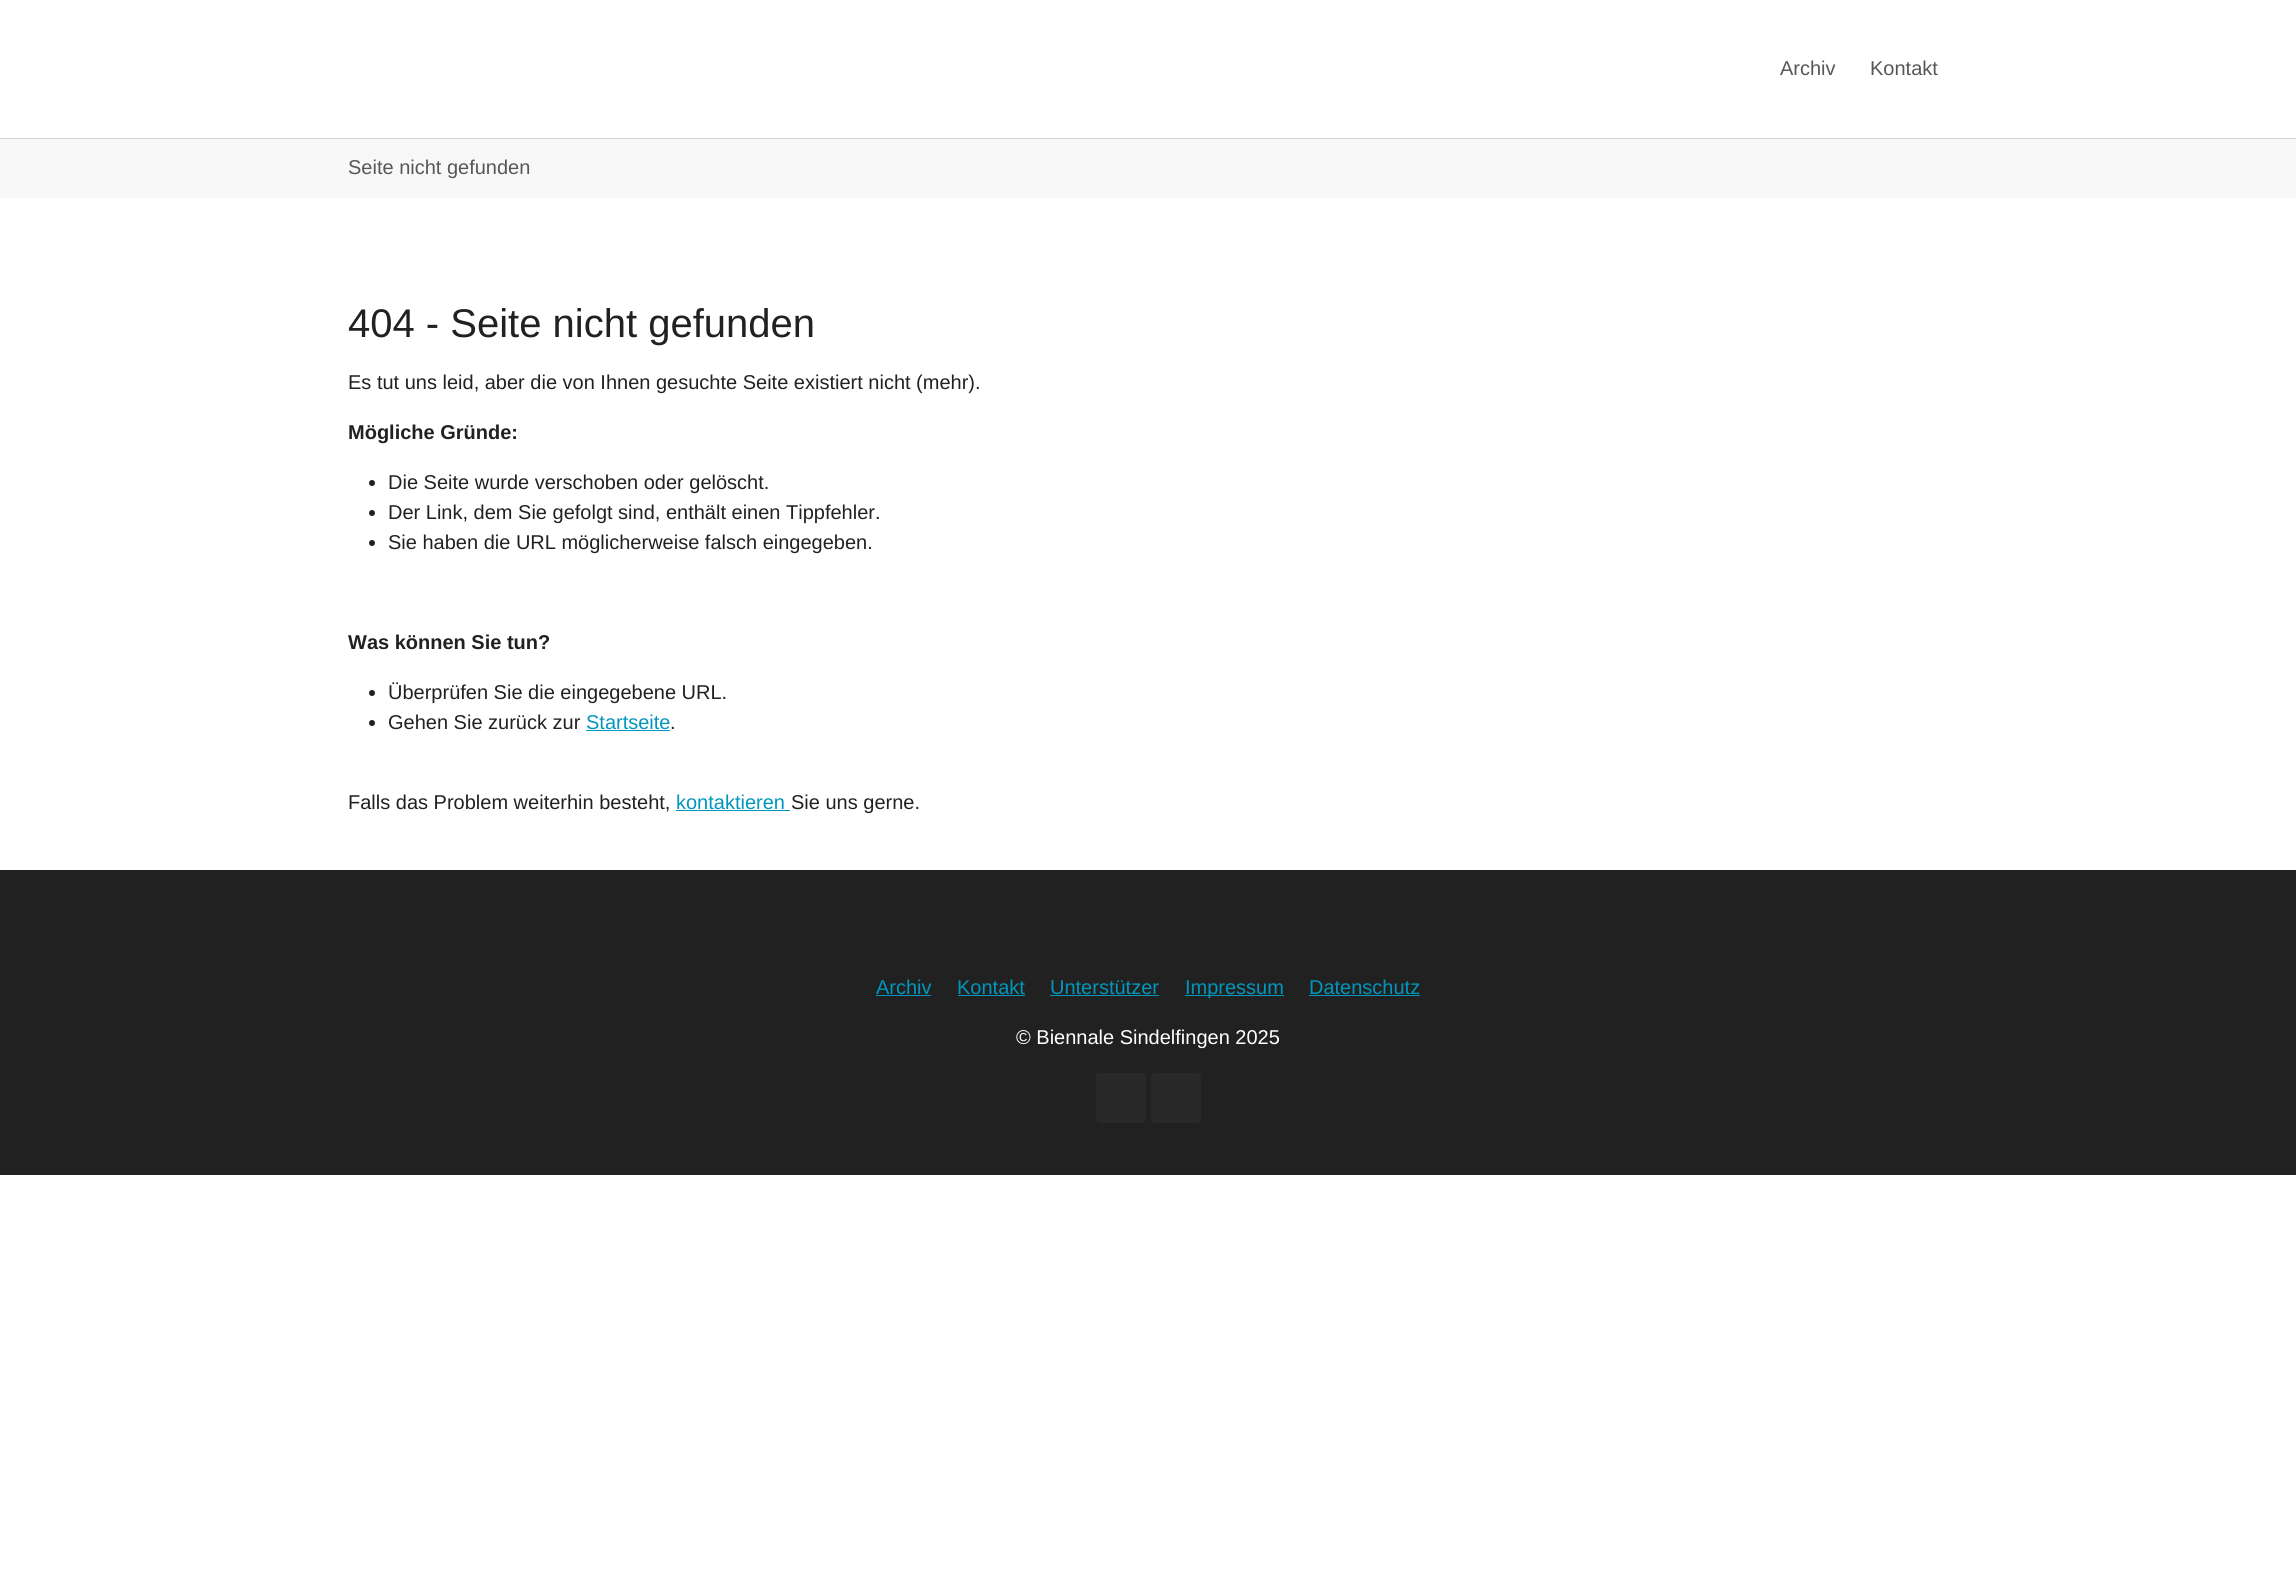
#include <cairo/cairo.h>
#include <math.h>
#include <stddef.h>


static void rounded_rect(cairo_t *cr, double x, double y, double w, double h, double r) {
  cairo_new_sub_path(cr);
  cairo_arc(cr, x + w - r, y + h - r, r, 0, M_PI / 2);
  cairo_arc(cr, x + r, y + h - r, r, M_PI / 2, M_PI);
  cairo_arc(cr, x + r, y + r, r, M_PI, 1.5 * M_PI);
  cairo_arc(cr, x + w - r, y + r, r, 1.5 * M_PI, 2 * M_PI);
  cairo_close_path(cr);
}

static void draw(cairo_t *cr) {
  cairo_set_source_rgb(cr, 1, 1, 1);
  cairo_paint(cr);
  cairo_set_source_rgb(cr, 211 / 255.0, 211 / 255.0, 211 / 255.0);
  cairo_rectangle(cr, 0, 138, 2296, 1);
  cairo_fill(cr);
  cairo_set_source_rgb(cr, 248 / 255.0, 248 / 255.0, 248 / 255.0);
  cairo_rectangle(cr, 0, 139, 2296, 59);
  cairo_fill(cr);
  cairo_set_source_rgb(cr, 33 / 255.0, 33 / 255.0, 33 / 255.0);
  cairo_arc(cr, 372, 483, 3, 0, 2 * M_PI);
  cairo_fill(cr);
  cairo_arc(cr, 372, 513, 3, 0, 2 * M_PI);
  cairo_fill(cr);
  cairo_arc(cr, 372, 543, 3, 0, 2 * M_PI);
  cairo_fill(cr);
  cairo_arc(cr, 372, 693, 3, 0, 2 * M_PI);
  cairo_fill(cr);
  cairo_arc(cr, 372, 723, 3, 0, 2 * M_PI);
  cairo_fill(cr);
  cairo_set_source_rgb(cr, 1 / 255.0, 150 / 255.0, 187 / 255.0);
  cairo_rectangle(cr, 586, 730, 84, 1);
  cairo_fill(cr);
  cairo_rectangle(cr, 676, 810, 114, 1);
  cairo_fill(cr);
  cairo_set_source_rgb(cr, 33 / 255.0, 33 / 255.0, 33 / 255.0);
  cairo_rectangle(cr, 0, 870, 2296, 305);
  cairo_fill(cr);
  cairo_set_source_rgb(cr, 1 / 255.0, 150 / 255.0, 187 / 255.0);
  cairo_rectangle(cr, 876, 995, 55, 1);
  cairo_fill(cr);
  cairo_rectangle(cr, 958, 995, 67, 1);
  cairo_fill(cr);
  cairo_rectangle(cr, 1050, 995, 109, 1);
  cairo_fill(cr);
  cairo_rectangle(cr, 1185, 995, 99, 1);
  cairo_fill(cr);
  cairo_rectangle(cr, 1309, 995, 111, 1);
  cairo_fill(cr);
  cairo_set_source_rgb(cr, 41 / 255.0, 41 / 255.0, 41 / 255.0);
  rounded_rect(cr, 1096, 1073, 50, 50, 4);
  cairo_fill(cr);
  rounded_rect(cr, 1151, 1073, 50, 50, 4);
  cairo_fill(cr);
  cairo_select_font_face(cr, "Liberation Sans", CAIRO_FONT_SLANT_NORMAL, CAIRO_FONT_WEIGHT_NORMAL);
  cairo_set_font_size(cr, 20);
  cairo_set_source_rgb(cr, 87 / 255.0, 87 / 255.0, 87 / 255.0);
  cairo_move_to(cr, 1780, 75);
  cairo_show_text(cr, "Archiv");
  cairo_move_to(cr, 1870, 75);
  cairo_show_text(cr, "Kontakt");
  cairo_move_to(cr, 348, 174);
  cairo_show_text(cr, "Seite nicht gefunden");
  cairo_set_font_size(cr, 40);
  cairo_set_source_rgb(cr, 33 / 255.0, 33 / 255.0, 33 / 255.0);
  cairo_move_to(cr, 348, 337);
  cairo_show_text(cr, "404 - Seite nicht gefunden");
  cairo_set_font_size(cr, 20);
  cairo_move_to(cr, 348, 389);
  cairo_show_text(cr, "Es tut uns leid, aber die von Ihnen gesuchte Seite existiert nicht (mehr).");
  cairo_select_font_face(cr, "Liberation Sans", CAIRO_FONT_SLANT_NORMAL, CAIRO_FONT_WEIGHT_BOLD);
  cairo_move_to(cr, 348, 439);
  cairo_show_text(cr, "Mögliche Gründe:");
  cairo_select_font_face(cr, "Liberation Sans", CAIRO_FONT_SLANT_NORMAL, CAIRO_FONT_WEIGHT_NORMAL);
  cairo_move_to(cr, 388, 489);
  cairo_show_text(cr, "Die Seite wurde verschoben oder gelöscht.");
  cairo_move_to(cr, 388, 519);
  cairo_show_text(cr, "Der Link, dem Sie gefolgt sind, enthält einen Tippfehler.");
  cairo_move_to(cr, 388, 549);
  cairo_show_text(cr, "Sie haben die URL möglicherweise falsch eingegeben.");
  cairo_select_font_face(cr, "Liberation Sans", CAIRO_FONT_SLANT_NORMAL, CAIRO_FONT_WEIGHT_BOLD);
  cairo_move_to(cr, 348, 649);
  cairo_show_text(cr, "Was können Sie tun?");
  cairo_select_font_face(cr, "Liberation Sans", CAIRO_FONT_SLANT_NORMAL, CAIRO_FONT_WEIGHT_NORMAL);
  cairo_move_to(cr, 388, 699);
  cairo_show_text(cr, "Überprüfen Sie die eingegebene URL.");
  cairo_move_to(cr, 388, 729);
  cairo_show_text(cr, "Gehen Sie zurück zur");
  cairo_set_source_rgb(cr, 1 / 255.0, 150 / 255.0, 187 / 255.0);
  cairo_move_to(cr, 586, 729);
  cairo_show_text(cr, "Startseite");
  cairo_set_source_rgb(cr, 33 / 255.0, 33 / 255.0, 33 / 255.0);
  cairo_move_to(cr, 670, 729);
  cairo_show_text(cr, ".");
  cairo_move_to(cr, 348, 809);
  cairo_show_text(cr, "Falls das Problem weiterhin besteht,");
  cairo_set_source_rgb(cr, 1 / 255.0, 150 / 255.0, 187 / 255.0);
  cairo_move_to(cr, 676, 809);
  cairo_show_text(cr, "kontaktieren");
  cairo_set_source_rgb(cr, 33 / 255.0, 33 / 255.0, 33 / 255.0);
  cairo_move_to(cr, 791, 809);
  cairo_show_text(cr, "Sie uns gerne.");
  cairo_set_source_rgb(cr, 1 / 255.0, 150 / 255.0, 187 / 255.0);
  cairo_move_to(cr, 876, 994);
  cairo_show_text(cr, "Archiv");
  cairo_move_to(cr, 957, 994);
  cairo_show_text(cr, "Kontakt");
  cairo_move_to(cr, 1050, 994);
  cairo_show_text(cr, "Unterstützer");
  cairo_move_to(cr, 1185, 994);
  cairo_show_text(cr, "Impressum");
  cairo_move_to(cr, 1309, 994);
  cairo_show_text(cr, "Datenschutz");
  cairo_set_source_rgb(cr, 1, 1, 1);
  cairo_move_to(cr, 1016, 1044);
  cairo_show_text(cr, "© Biennale Sindelfingen 2025");
}

int main(void) {
  cairo_surface_t *surface = cairo_image_surface_create(CAIRO_FORMAT_RGB24, 2296, 1591);
  cairo_t *cr = cairo_create(surface);
  cairo_font_options_t *options = cairo_font_options_create();
  cairo_font_options_set_hint_metrics(options, CAIRO_HINT_METRICS_OFF);
  cairo_font_options_set_hint_style(options, CAIRO_HINT_STYLE_NONE);
  cairo_set_font_options(cr, options);
  cairo_set_miter_limit(cr, 4);
  draw(cr);
  cairo_surface_write_to_png(surface, "out.png");
  cairo_font_options_destroy(options);
  cairo_destroy(cr);
  cairo_surface_destroy(surface);
  return 0;
}
